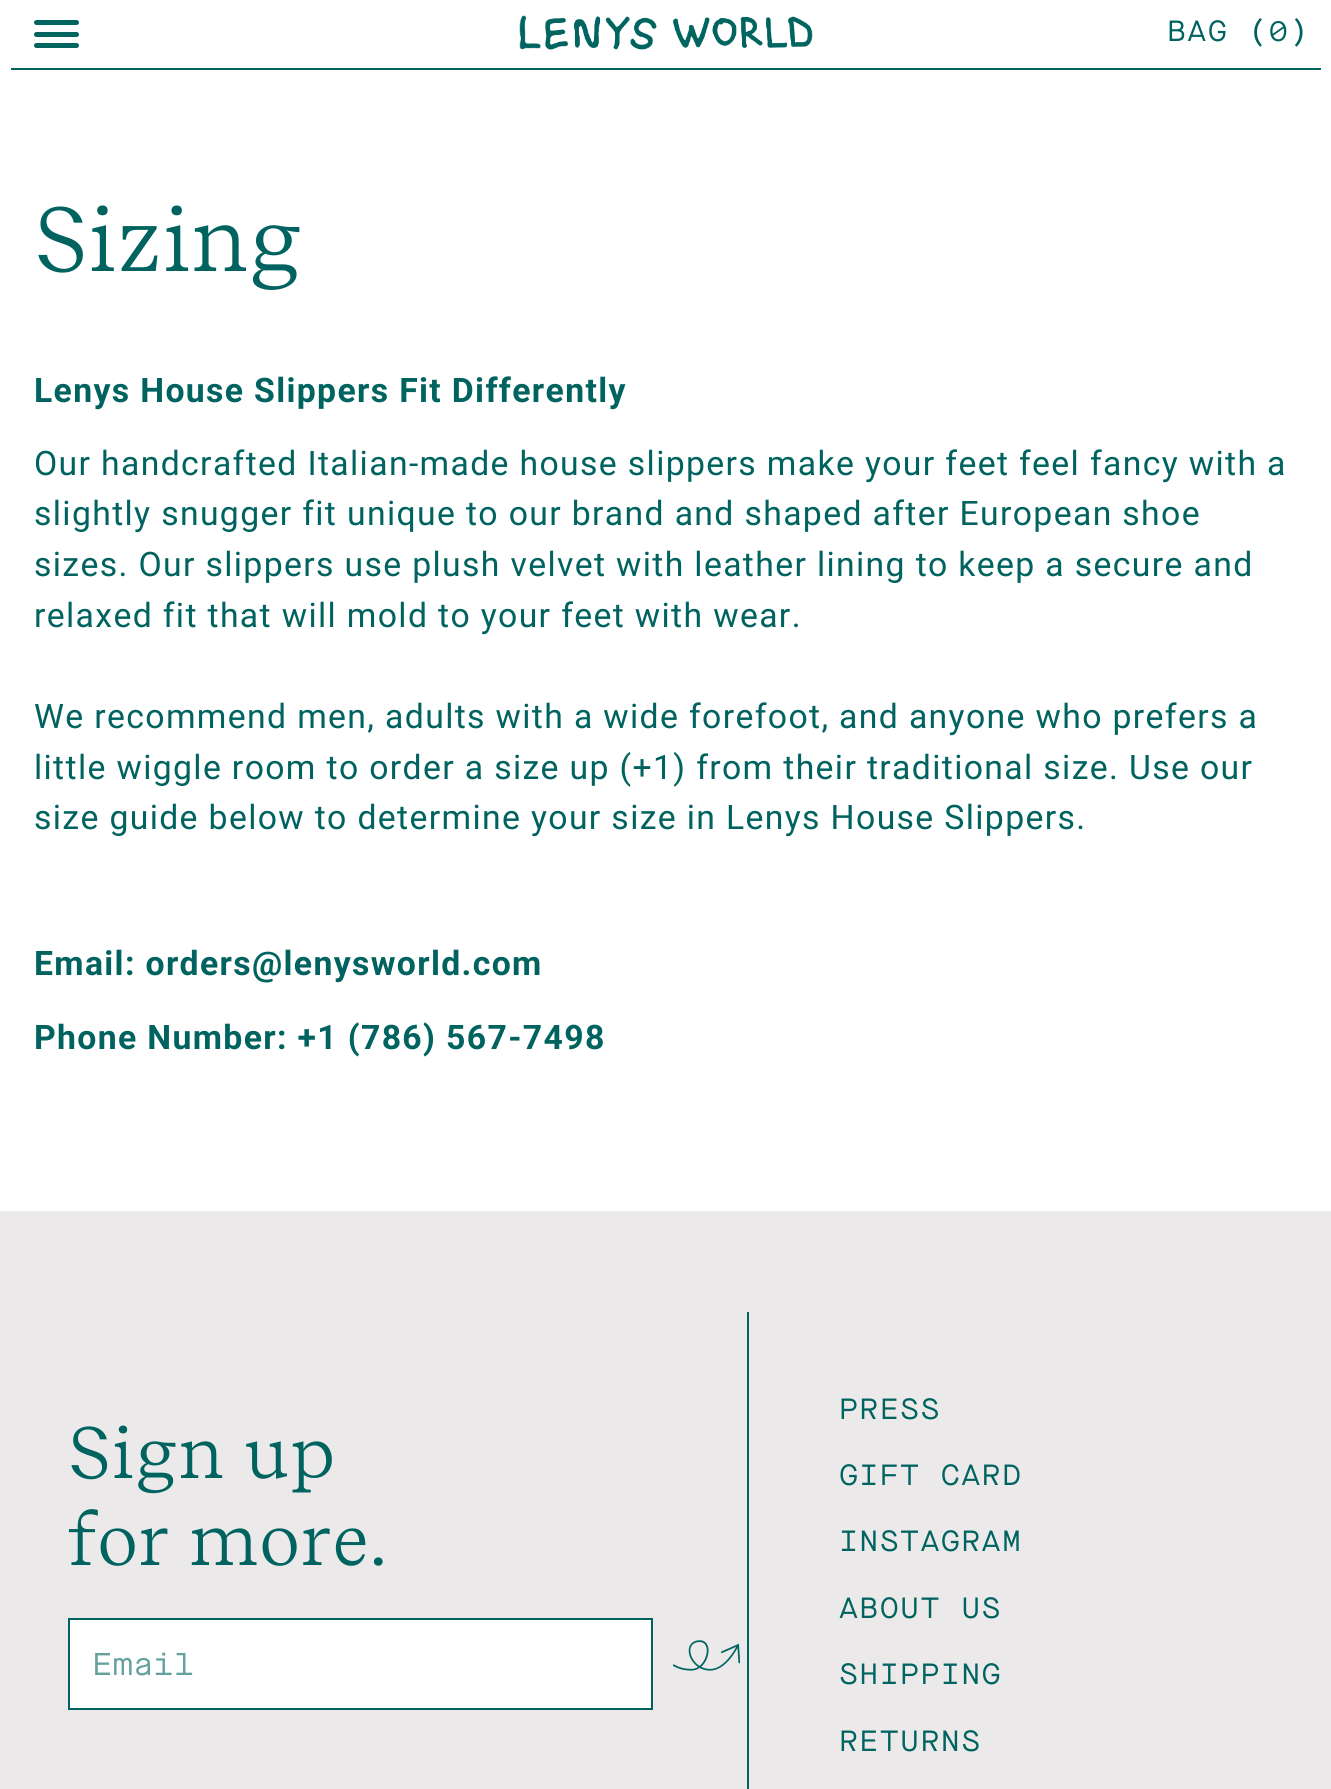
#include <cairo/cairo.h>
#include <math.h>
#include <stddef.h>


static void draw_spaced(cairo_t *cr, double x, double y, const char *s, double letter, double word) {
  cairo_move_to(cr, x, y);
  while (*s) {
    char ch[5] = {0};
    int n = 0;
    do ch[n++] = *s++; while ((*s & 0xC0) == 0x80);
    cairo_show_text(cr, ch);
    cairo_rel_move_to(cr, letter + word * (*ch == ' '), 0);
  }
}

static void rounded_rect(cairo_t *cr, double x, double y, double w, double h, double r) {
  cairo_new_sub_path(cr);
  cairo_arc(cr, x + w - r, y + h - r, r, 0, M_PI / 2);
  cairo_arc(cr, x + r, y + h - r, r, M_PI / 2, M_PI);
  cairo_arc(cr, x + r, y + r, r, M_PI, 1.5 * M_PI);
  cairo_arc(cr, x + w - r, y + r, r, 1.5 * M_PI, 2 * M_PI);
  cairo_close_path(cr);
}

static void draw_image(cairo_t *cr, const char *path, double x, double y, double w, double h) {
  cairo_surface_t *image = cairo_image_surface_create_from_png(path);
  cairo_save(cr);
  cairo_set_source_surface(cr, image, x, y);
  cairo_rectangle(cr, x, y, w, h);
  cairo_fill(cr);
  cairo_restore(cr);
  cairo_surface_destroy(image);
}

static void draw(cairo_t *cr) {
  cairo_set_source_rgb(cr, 1, 1, 1);
  cairo_paint(cr);
  cairo_set_source_rgb(cr, 0, 99 / 255.0, 95 / 255.0);
  cairo_rectangle(cr, 11, 68, 1310, 2);
  cairo_fill(cr);
  rounded_rect(cr, 34, 32, 45, 5, 2.5);
  cairo_fill(cr);
  rounded_rect(cr, 34, 20, 45, 5, 2.5);
  cairo_fill(cr);
  rounded_rect(cr, 34, 43, 45, 5, 2.5);
  cairo_fill(cr);
  draw_image(cr, "images/1.png", 519, 15, 294, 35);
  cairo_set_source_rgb(cr, 235 / 255.0, 233 / 255.0, 233 / 255.0);
  cairo_rectangle(cr, 0, 1211, 1331, 578);
  cairo_fill(cr);
  cairo_set_source_rgb(cr, 1, 1, 1);
  cairo_rectangle(cr, 69, 1619, 583, 90);
  cairo_fill_preserve(cr);
  cairo_set_source_rgb(cr, 0, 99 / 255.0, 95 / 255.0);
  cairo_stroke(cr);
  draw_image(cr, "images/2.png", 673, 1640, 67, 31);
  cairo_rectangle(cr, 747, 1312, 2, 477);
  cairo_fill(cr);
  cairo_select_font_face(cr, "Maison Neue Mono", CAIRO_FONT_SLANT_NORMAL, CAIRO_FONT_WEIGHT_NORMAL);
  cairo_set_font_size(cr, 29.25);
  draw_spaced(cr, 1167, 41, "BAG (0)", 1.35, 0);
  cairo_select_font_face(cr, "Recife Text", CAIRO_FONT_SLANT_NORMAL, CAIRO_FONT_WEIGHT_NORMAL);
  cairo_set_font_size(cr, 90);
  draw_spaced(cr, 34, 271, "Sizing", 1.35, 0);
  cairo_select_font_face(cr, "Roboto", CAIRO_FONT_SLANT_NORMAL, CAIRO_FONT_WEIGHT_BOLD);
  cairo_set_font_size(cr, 33.75);
  draw_spaced(cr, 34, 402, "Lenys House Slippers Fit Differently", 1.35, 0);
  cairo_select_font_face(cr, "Roboto", CAIRO_FONT_SLANT_NORMAL, CAIRO_FONT_WEIGHT_NORMAL);
  draw_spaced(cr, 34, 475, "Our handcrafted Italian-made house slippers make your feet feel fancy with a", 1.35, 0);
  draw_spaced(cr, 34, 525, "slightly snugger fit unique to our brand and shaped after European shoe", 1.35, 0);
  draw_spaced(cr, 34, 576, "sizes. Our slippers use plush velvet with leather lining to keep a secure and", 1.35, 0);
  draw_spaced(cr, 34, 627, "relaxed fit that will mold to your feet with wear.", 1.35, 0);
  draw_spaced(cr, 34, 728, "We recommend men, adults with a wide forefoot, and anyone who prefers a", 1.35, 0);
  draw_spaced(cr, 34, 779, "little wiggle room to order a size up (+1) from their traditional size. Use our", 1.35, 0);
  draw_spaced(cr, 34, 829, "size guide below to determine your size in Lenys House Slippers.", 1.35, 0);
  cairo_select_font_face(cr, "Roboto", CAIRO_FONT_SLANT_NORMAL, CAIRO_FONT_WEIGHT_BOLD);
  draw_spaced(cr, 34, 975, "Email: orders@lenysworld.com", 1.35, 0);
  draw_spaced(cr, 34, 1049, "Phone Number: +1 (786) 567-7498", 1.35, 0);
  cairo_select_font_face(cr, "Recife Text", CAIRO_FONT_SLANT_NORMAL, CAIRO_FONT_WEIGHT_NORMAL);
  cairo_set_font_size(cr, 72);
  draw_spaced(cr, 68, 1478, "Sign up", 1.35, 0);
  draw_spaced(cr, 68, 1565, "for more.", 1.35, 0);
  cairo_select_font_face(cr, "Maison Neue Mono", CAIRO_FONT_SLANT_NORMAL, CAIRO_FONT_WEIGHT_NORMAL);
  cairo_set_font_size(cr, 31.5);
  cairo_set_source_rgb(cr, 102 / 255.0, 161 / 255.0, 159 / 255.0);
  cairo_move_to(cr, 92, 1675);
  cairo_show_text(cr, "Email");
  cairo_set_font_size(cr, 29.25);
  cairo_set_source_rgb(cr, 0, 99 / 255.0, 95 / 255.0);
  draw_spaced(cr, 839, 1419, "PRESS", 1.35, 0);
  draw_spaced(cr, 839, 1485, "GIFT CARD", 1.35, 0);
  draw_spaced(cr, 839, 1551, "INSTAGRAM", 1.35, 0);
  draw_spaced(cr, 839, 1618, "ABOUT US", 1.35, 0);
  draw_spaced(cr, 839, 1684, "SHIPPING", 1.35, 0);
  draw_spaced(cr, 839, 1751, "RETURNS", 1.35, 0);
}

int main(void) {
  cairo_surface_t *surface = cairo_image_surface_create(CAIRO_FORMAT_RGB24, 1331, 1789);
  cairo_t *cr = cairo_create(surface);
  cairo_font_options_t *options = cairo_font_options_create();
  cairo_font_options_set_hint_metrics(options, CAIRO_HINT_METRICS_OFF);
  cairo_font_options_set_hint_style(options, CAIRO_HINT_STYLE_NONE);
  cairo_set_font_options(cr, options);
  cairo_set_miter_limit(cr, 4);
  draw(cr);
  cairo_surface_write_to_png(surface, "out.png");
  cairo_font_options_destroy(options);
  cairo_destroy(cr);
  cairo_surface_destroy(surface);
  return 0;
}
